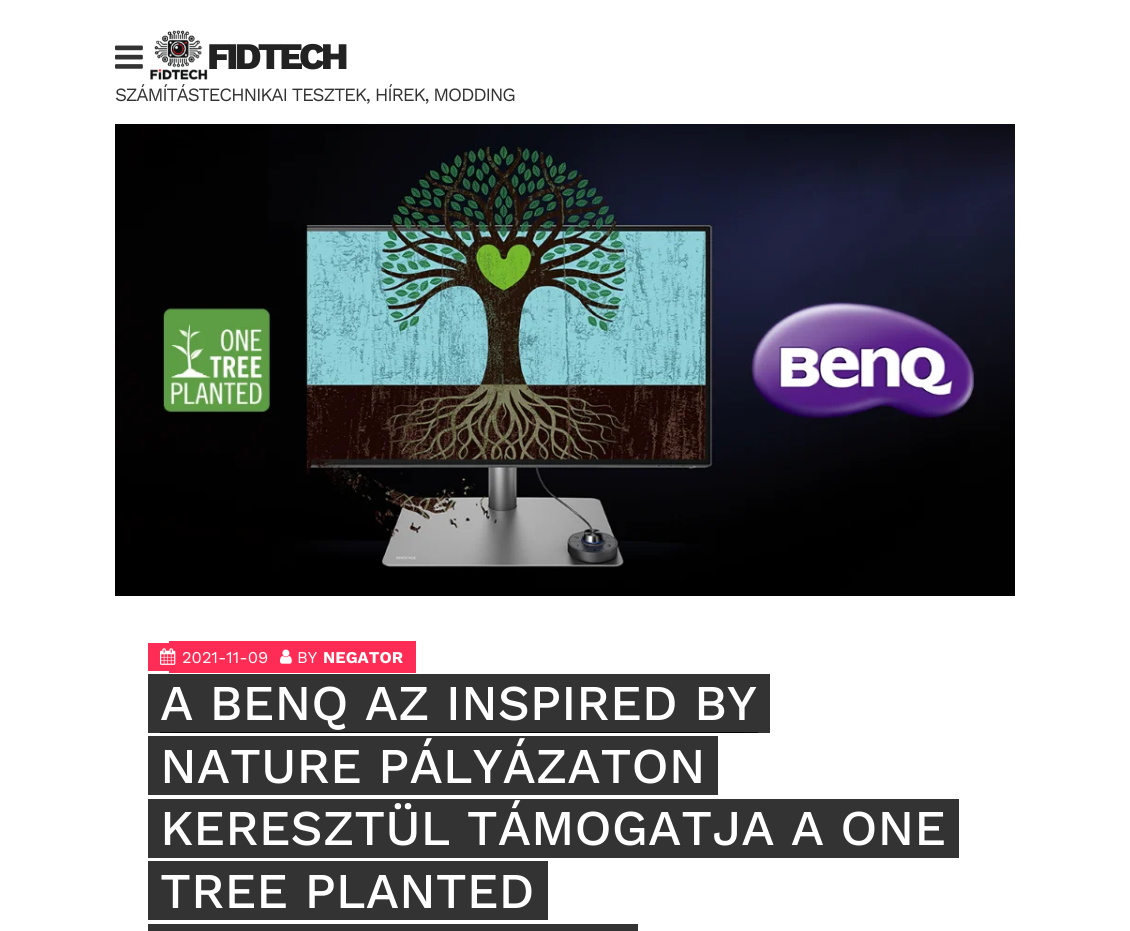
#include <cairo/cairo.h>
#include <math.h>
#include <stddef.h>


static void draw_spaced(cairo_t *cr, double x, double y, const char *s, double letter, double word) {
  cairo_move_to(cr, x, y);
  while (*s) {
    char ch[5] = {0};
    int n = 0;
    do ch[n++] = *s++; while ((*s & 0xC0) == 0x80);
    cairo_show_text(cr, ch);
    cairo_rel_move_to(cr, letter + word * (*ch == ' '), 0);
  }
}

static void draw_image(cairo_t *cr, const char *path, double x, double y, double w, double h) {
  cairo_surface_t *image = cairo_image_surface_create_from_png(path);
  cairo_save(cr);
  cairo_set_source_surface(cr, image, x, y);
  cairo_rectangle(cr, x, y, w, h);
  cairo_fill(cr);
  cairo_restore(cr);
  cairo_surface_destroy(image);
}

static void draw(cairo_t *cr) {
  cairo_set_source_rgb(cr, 1, 1, 1);
  cairo_paint(cr);
  draw_image(cr, "images/1.png", 115, 45, 28, 24);
  draw_image(cr, "images/2.png", 150, 30, 58, 50);
  draw_image(cr, "images/3.png", 115, 124, 900, 472);
  cairo_set_source_rgb(cr, 1, 45 / 255.0, 85 / 255.0);
  cairo_rectangle(cr, 148, 643, 21, 28);
  cairo_fill(cr);
  cairo_new_path(cr);
  cairo_move_to(cr, 169, 641);
  cairo_line_to(cr, 169, 673);
  cairo_line_to(cr, 255, 673);
  cairo_line_to(cr, 255, 672);
  cairo_line_to(cr, 181, 672);
  cairo_line_to(cr, 181, 641);
  cairo_line_to(cr, 255, 641);
  cairo_close_path(cr);
  cairo_fill(cr);
  cairo_new_path(cr);
  cairo_move_to(cr, 194, 641);
  cairo_line_to(cr, 268, 641);
  cairo_line_to(cr, 268, 672);
  cairo_line_to(cr, 194, 672);
  cairo_line_to(cr, 194, 673);
  cairo_line_to(cr, 280, 673);
  cairo_line_to(cr, 280, 641);
  cairo_close_path(cr);
  cairo_fill(cr);
  cairo_rectangle(cr, 181, 641, 87, 31);
  cairo_fill(cr);
  cairo_new_path(cr);
  cairo_move_to(cr, 279, 641);
  cairo_line_to(cr, 279, 673);
  cairo_line_to(cr, 311, 673);
  cairo_line_to(cr, 311, 672.5);
  cairo_line_to(cr, 291, 672.5);
  cairo_line_to(cr, 291, 641);
  cairo_line_to(cr, 311, 641);
  cairo_close_path(cr);
  cairo_fill(cr);
  cairo_rectangle(cr, 291, 641, 20, 32);
  cairo_fill(cr);
  cairo_new_path(cr);
  cairo_move_to(cr, 311, 641);
  cairo_line_to(cr, 311, 673);
  cairo_line_to(cr, 391, 673);
  cairo_line_to(cr, 391, 672);
  cairo_line_to(cr, 324, 672);
  cairo_line_to(cr, 324, 641);
  cairo_line_to(cr, 391, 641);
  cairo_close_path(cr);
  cairo_fill(cr);
  cairo_new_path(cr);
  cairo_move_to(cr, 336, 641);
  cairo_line_to(cr, 404, 641);
  cairo_line_to(cr, 404, 672);
  cairo_line_to(cr, 336, 672);
  cairo_line_to(cr, 336, 673);
  cairo_line_to(cr, 416, 673);
  cairo_line_to(cr, 416, 641);
  cairo_close_path(cr);
  cairo_fill(cr);
  cairo_rectangle(cr, 324, 641, 80, 31);
  cairo_fill(cr);
  draw_image(cr, "images/4.png", 160, 648, 16, 17);
  draw_image(cr, "images/5.png", 280, 649, 12, 15);
  cairo_set_source_rgb(cr, 51 / 255.0, 51 / 255.0, 51 / 255.0);
  cairo_new_path(cr);
  cairo_move_to(cr, 148, 674);
  cairo_line_to(cr, 148, 733);
  cairo_line_to(cr, 745, 733);
  cairo_line_to(cr, 745, 732);
  cairo_line_to(cr, 160, 732);
  cairo_line_to(cr, 160, 674);
  cairo_close_path(cr);
  cairo_fill(cr);
  cairo_set_source_rgba(cr, 0, 0, 0, 0.8);
  cairo_new_path(cr);
  cairo_move_to(cr, 173, 732);
  cairo_line_to(cr, 173, 733);
  cairo_line_to(cr, 770, 733);
  cairo_line_to(cr, 770, 674);
  cairo_line_to(cr, 758, 674);
  cairo_line_to(cr, 758, 732);
  cairo_close_path(cr);
  cairo_fill(cr);
  cairo_rectangle(cr, 160, 674, 598, 59);
  cairo_fill(cr);
  cairo_set_source_rgb(cr, 51 / 255.0, 51 / 255.0, 51 / 255.0);
  cairo_new_path(cr);
  cairo_move_to(cr, 148, 736);
  cairo_line_to(cr, 148, 795);
  cairo_line_to(cr, 160, 795);
  cairo_line_to(cr, 160, 736);
  cairo_line_to(cr, 693, 736);
  cairo_close_path(cr);
  cairo_fill(cr);
  cairo_new_path(cr);
  cairo_move_to(cr, 173, 736);
  cairo_line_to(cr, 705, 736);
  cairo_line_to(cr, 705, 795);
  cairo_line_to(cr, 718, 795);
  cairo_line_to(cr, 718, 736);
  cairo_close_path(cr);
  cairo_fill(cr);
  cairo_rectangle(cr, 160, 736, 545, 59);
  cairo_fill(cr);
  cairo_new_path(cr);
  cairo_move_to(cr, 148, 799);
  cairo_line_to(cr, 148, 858);
  cairo_line_to(cr, 934, 858);
  cairo_line_to(cr, 160, 858);
  cairo_line_to(cr, 160, 799);
  cairo_close_path(cr);
  cairo_fill(cr);
  cairo_new_path(cr);
  cairo_move_to(cr, 173, 858);
  cairo_line_to(cr, 959, 858);
  cairo_line_to(cr, 959, 799);
  cairo_line_to(cr, 946, 799);
  cairo_line_to(cr, 946, 858);
  cairo_close_path(cr);
  cairo_fill(cr);
  cairo_rectangle(cr, 160, 799, 786, 59);
  cairo_fill(cr);
  cairo_new_path(cr);
  cairo_move_to(cr, 148, 861);
  cairo_line_to(cr, 148, 920);
  cairo_line_to(cr, 160, 920);
  cairo_line_to(cr, 160, 861);
  cairo_line_to(cr, 523, 861);
  cairo_close_path(cr);
  cairo_fill(cr);
  cairo_new_path(cr);
  cairo_move_to(cr, 173, 861);
  cairo_line_to(cr, 535, 861);
  cairo_line_to(cr, 535, 920);
  cairo_line_to(cr, 548, 920);
  cairo_line_to(cr, 548, 861);
  cairo_close_path(cr);
  cairo_fill(cr);
  cairo_rectangle(cr, 160, 861, 375, 59);
  cairo_fill(cr);
  cairo_new_path(cr);
  cairo_move_to(cr, 148, 924);
  cairo_line_to(cr, 148, 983);
  cairo_line_to(cr, 613, 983);
  cairo_line_to(cr, 613, 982);
  cairo_line_to(cr, 160, 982);
  cairo_line_to(cr, 160, 924);
  cairo_close_path(cr);
  cairo_fill(cr);
  cairo_new_path(cr);
  cairo_move_to(cr, 173, 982);
  cairo_line_to(cr, 173, 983);
  cairo_line_to(cr, 638, 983);
  cairo_line_to(cr, 638, 924);
  cairo_line_to(cr, 625, 924);
  cairo_line_to(cr, 625, 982);
  cairo_close_path(cr);
  cairo_fill(cr);
  cairo_rectangle(cr, 160, 924, 465, 7);
  cairo_fill(cr);
  cairo_select_font_face(cr, "Work Sans ExtraBold", CAIRO_FONT_SLANT_NORMAL, CAIRO_FONT_WEIGHT_NORMAL);
  cairo_set_font_size(cr, 37.5);
  cairo_set_source_rgb(cr, 34 / 255.0, 34 / 255.0, 34 / 255.0);
  draw_spaced(cr, 207, 69, "FIDTECH", -3.75, 0);
  cairo_select_font_face(cr, "Work Sans", CAIRO_FONT_SLANT_NORMAL, CAIRO_FONT_WEIGHT_NORMAL);
  cairo_set_font_size(cr, 18.75);
  cairo_set_source_rgb(cr, 51 / 255.0, 51 / 255.0, 51 / 255.0);
  draw_spaced(cr, 115, 101, "SZÁMÍTÁSTECHNIKAI TESZTEK, HÍREK, MODDING", -1.25, 0);
  cairo_set_font_size(cr, 16.5);
  cairo_set_source_rgb(cr, 1, 1, 1);
  cairo_move_to(cr, 182, 663);
  cairo_show_text(cr, "2021-11-09");
  cairo_move_to(cr, 297, 663);
  cairo_show_text(cr, "BY");
  cairo_select_font_face(cr, "Work Sans", CAIRO_FONT_SLANT_NORMAL, CAIRO_FONT_WEIGHT_BOLD);
  cairo_move_to(cr, 323, 663);
  cairo_show_text(cr, "NEGATOR");
  cairo_select_font_face(cr, "Work Sans Medium", CAIRO_FONT_SLANT_NORMAL, CAIRO_FONT_WEIGHT_NORMAL);
  cairo_set_font_size(cr, 50);
  cairo_move_to(cr, 160, 720);
  cairo_show_text(cr, "A BENQ AZ INSPIRED BY");
  cairo_move_to(cr, 160, 783);
  cairo_show_text(cr, "NATURE PÁLYÁZATON");
  cairo_move_to(cr, 160, 845);
  cairo_show_text(cr, "KERESZTÜL TÁMOGATJA A ONE");
  cairo_move_to(cr, 160, 908);
  cairo_show_text(cr, "TREE PLANTED");
}

int main(void) {
  cairo_surface_t *surface = cairo_image_surface_create(CAIRO_FORMAT_RGB24, 1130, 931);
  cairo_t *cr = cairo_create(surface);
  cairo_font_options_t *options = cairo_font_options_create();
  cairo_font_options_set_hint_metrics(options, CAIRO_HINT_METRICS_OFF);
  cairo_font_options_set_hint_style(options, CAIRO_HINT_STYLE_NONE);
  cairo_set_font_options(cr, options);
  cairo_set_miter_limit(cr, 4);
  draw(cr);
  cairo_surface_write_to_png(surface, "out.png");
  cairo_font_options_destroy(options);
  cairo_destroy(cr);
  cairo_surface_destroy(surface);
  return 0;
}
